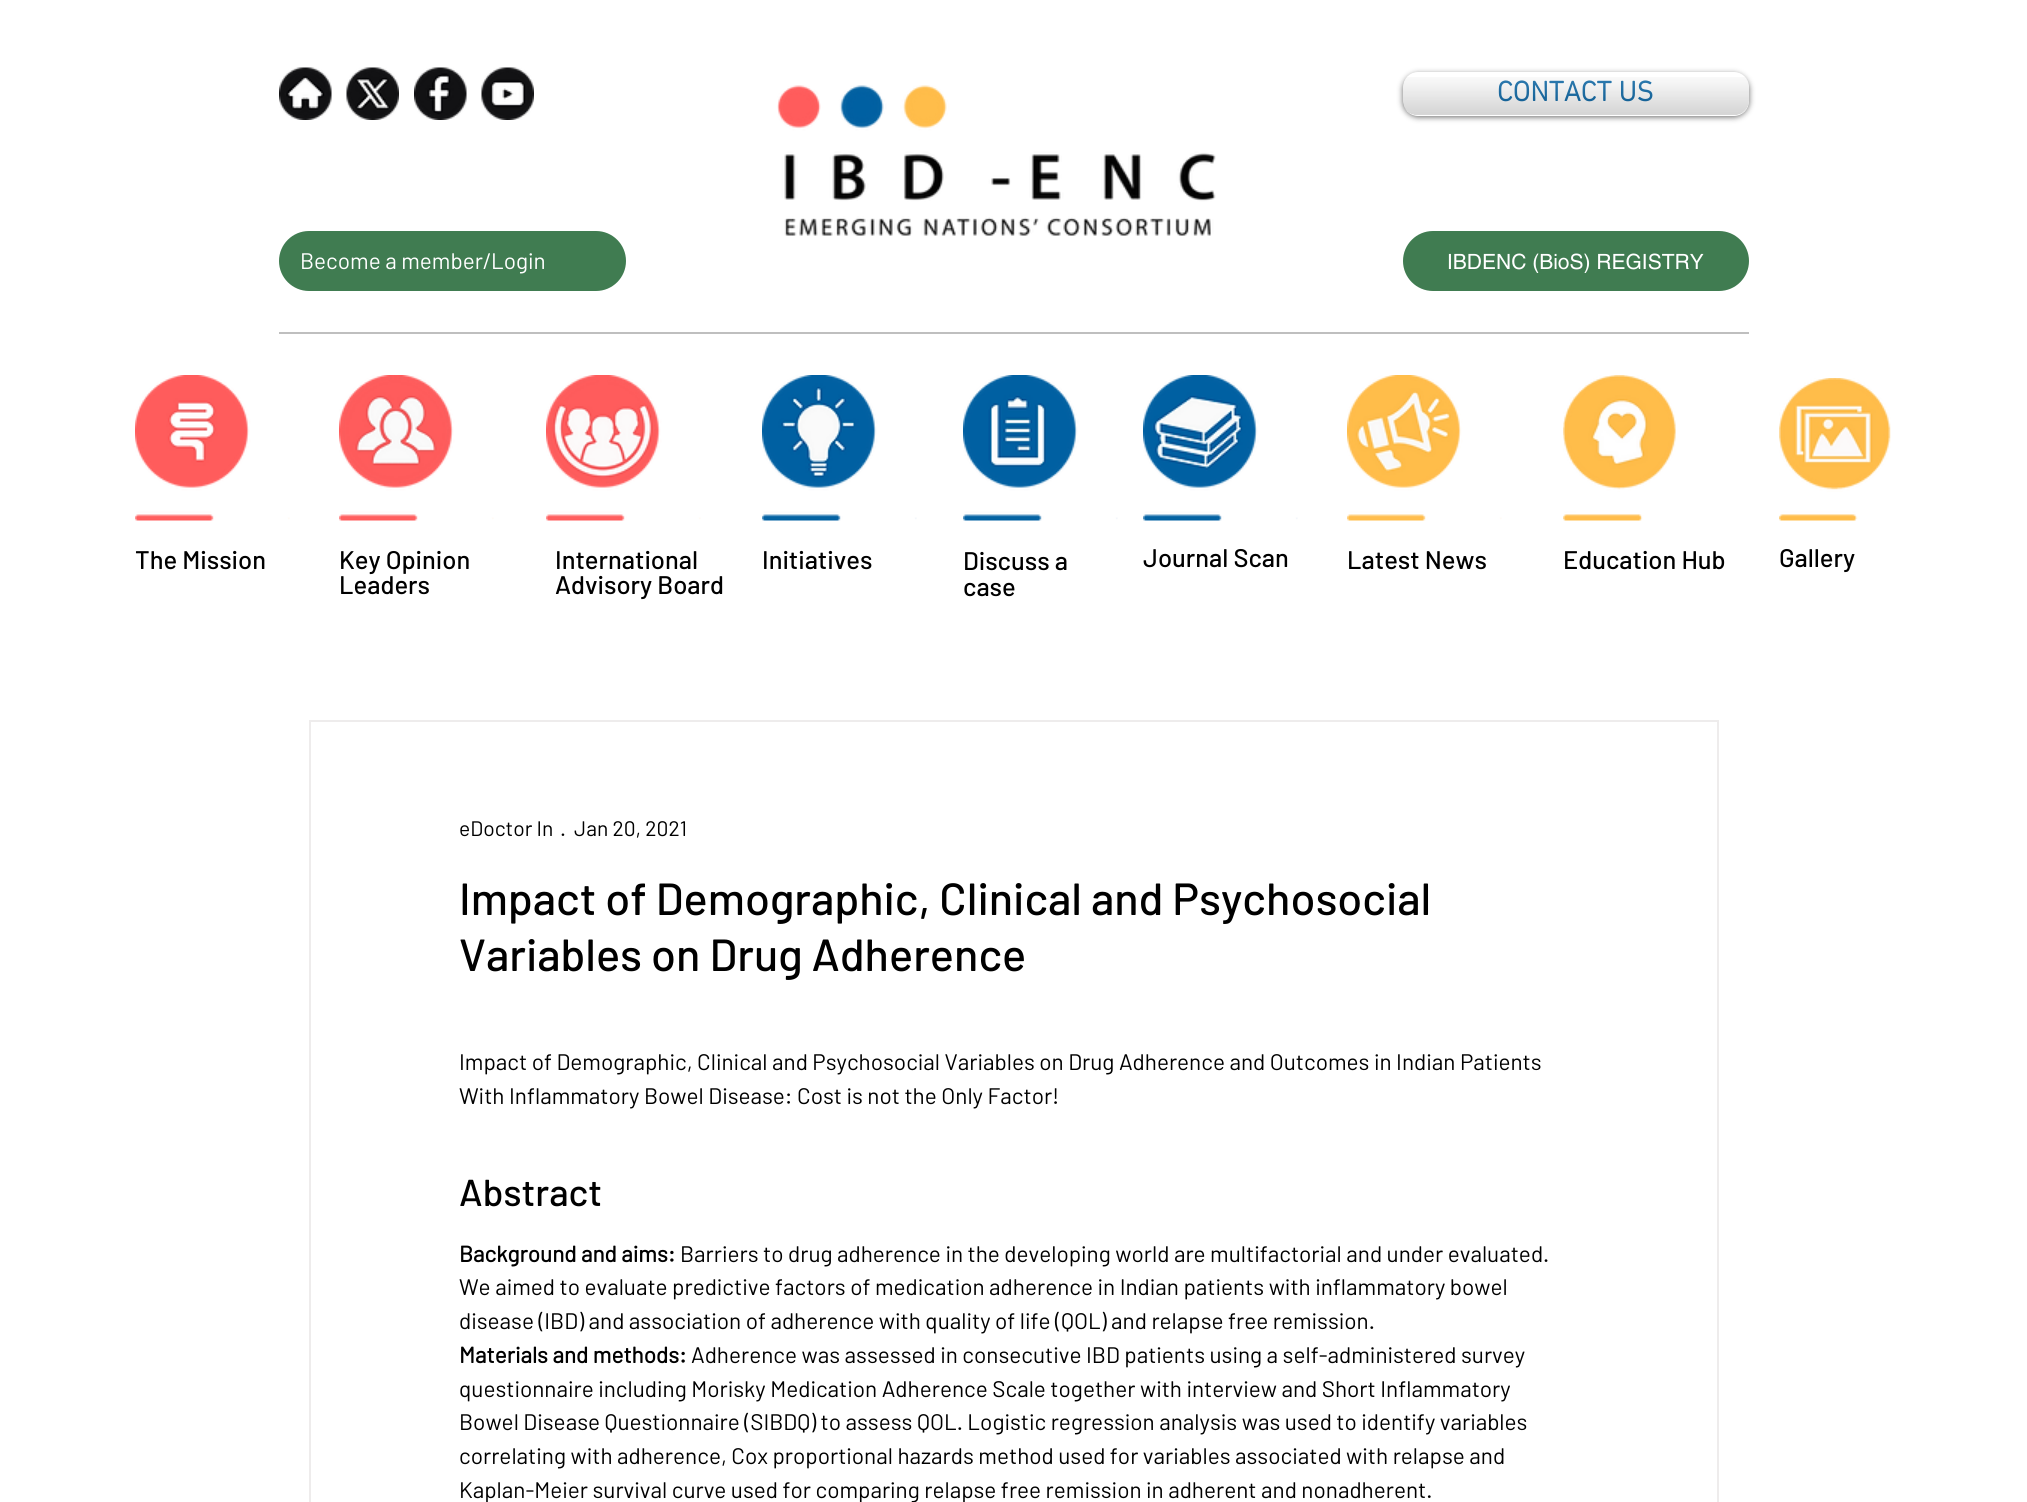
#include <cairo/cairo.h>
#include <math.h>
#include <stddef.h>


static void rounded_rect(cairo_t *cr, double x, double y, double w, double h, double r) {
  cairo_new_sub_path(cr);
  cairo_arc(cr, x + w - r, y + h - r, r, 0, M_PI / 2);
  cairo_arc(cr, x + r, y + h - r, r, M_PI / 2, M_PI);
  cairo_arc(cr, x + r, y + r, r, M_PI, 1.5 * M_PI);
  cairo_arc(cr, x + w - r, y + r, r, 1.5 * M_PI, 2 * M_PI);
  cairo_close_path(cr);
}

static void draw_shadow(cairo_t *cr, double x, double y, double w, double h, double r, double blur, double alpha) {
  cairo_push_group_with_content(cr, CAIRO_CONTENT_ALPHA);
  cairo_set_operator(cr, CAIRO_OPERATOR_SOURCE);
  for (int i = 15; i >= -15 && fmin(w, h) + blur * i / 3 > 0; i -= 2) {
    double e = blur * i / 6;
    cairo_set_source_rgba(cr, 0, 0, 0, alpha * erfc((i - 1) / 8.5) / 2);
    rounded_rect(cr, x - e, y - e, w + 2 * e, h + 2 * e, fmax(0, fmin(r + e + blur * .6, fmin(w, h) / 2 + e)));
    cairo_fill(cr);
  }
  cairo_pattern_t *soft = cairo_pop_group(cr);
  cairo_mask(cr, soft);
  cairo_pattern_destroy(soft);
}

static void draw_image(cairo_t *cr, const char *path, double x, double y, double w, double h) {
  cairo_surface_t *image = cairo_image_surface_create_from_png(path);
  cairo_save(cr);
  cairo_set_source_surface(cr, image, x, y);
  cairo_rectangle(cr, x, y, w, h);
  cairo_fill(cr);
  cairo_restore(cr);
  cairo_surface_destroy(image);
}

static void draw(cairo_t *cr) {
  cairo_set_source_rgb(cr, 1, 1, 1);
  cairo_paint(cr);
  draw_image(cr, "images/1.png", 777, 85, 439, 151);
  draw_image(cr, "images/2.png", 279, 67, 53, 53);
  draw_image(cr, "images/3.png", 346, 67, 53, 53);
  draw_image(cr, "images/4.png", 414, 67, 53, 53);
  draw_image(cr, "images/5.png", 481, 67, 53, 53);
  cairo_set_source_rgb(cr, 0, 0, 0);
  draw_shadow(cr, 1403, 74, 346, 43, 15, 3, 0.6);
  draw_image(cr, "images/6.png", 1403, 79, 346, 36);
  cairo_set_source_rgb(cr, 1, 1, 1);
  rounded_rect(cr, 1403, 72, 346, 44, 15);
  cairo_fill(cr);
  cairo_set_source_rgb(cr, 64 / 255.0, 124 / 255.0, 81 / 255.0);
  rounded_rect(cr, 279, 231, 347, 60, 30);
  cairo_fill(cr);
  rounded_rect(cr, 1403, 231, 346, 60, 30);
  cairo_fill(cr);
  cairo_set_source_rgb(cr, 191 / 255.0, 191 / 255.0, 191 / 255.0);
  cairo_rectangle(cr, 279, 332, 1470, 2);
  cairo_fill(cr);
  draw_image(cr, "images/9.png", 135, 375, 155, 146);
  draw_image(cr, "images/10.png", 339, 375, 155, 146);
  draw_image(cr, "images/11.png", 546, 375, 155, 146);
  draw_image(cr, "images/12.png", 762, 375, 155, 146);
  draw_image(cr, "images/13.png", 963, 375, 155, 146);
  draw_image(cr, "images/14.png", 1143, 375, 155, 146);
  draw_image(cr, "images/15.png", 1347, 375, 155, 146);
  draw_image(cr, "images/16.png", 1563, 375, 113, 146);
  draw_image(cr, "images/17.png", 1779, 378, 112, 143);
  cairo_rectangle(cr, 310, 721, 1408, 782);
  cairo_set_source_rgb(cr, 238 / 255.0, 236 / 255.0, 236 / 255.0);
  cairo_stroke(cr);
  cairo_select_font_face(cr, "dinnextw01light", CAIRO_FONT_SLANT_NORMAL, CAIRO_FONT_WEIGHT_BOLD);
  cairo_set_font_size(cr, 28.5);
  cairo_set_source_rgb(cr, 0, 96 / 255.0, 162 / 255.0);
  cairo_move_to(cr, 1497, 101);
  cairo_show_text(cr, "CONTACT US");
  draw_image(cr, "images/7.png", 1499, 81, 154, 21);
  draw_image(cr, "images/8.png", 1403, 77, 346, 38);
  cairo_select_font_face(cr, "Barlow", CAIRO_FONT_SLANT_NORMAL, CAIRO_FONT_WEIGHT_NORMAL);
  cairo_set_font_size(cr, 22.5);
  cairo_set_source_rgb(cr, 1, 1, 1);
  cairo_move_to(cr, 300, 269);
  cairo_show_text(cr, "Become a member/Login");
  cairo_save(cr);
  cairo_rectangle(cr, 1448, 249, 256, 24);
  cairo_clip(cr);
  cairo_select_font_face(cr, "helvetica", CAIRO_FONT_SLANT_NORMAL, CAIRO_FONT_WEIGHT_NORMAL);
  cairo_set_font_size(cr, 21);
  cairo_move_to(cr, 1447, 269);
  cairo_show_text(cr, "IBDENC (BioS) REGISTRY");
  cairo_restore(cr);
  cairo_select_font_face(cr, "Barlow Medium", CAIRO_FONT_SLANT_NORMAL, CAIRO_FONT_WEIGHT_NORMAL);
  cairo_set_font_size(cr, 25.5);
  cairo_set_source_rgb(cr, 0, 0, 0);
  cairo_move_to(cr, 135, 569);
  cairo_show_text(cr, "The Mission");
  cairo_move_to(cr, 339, 569);
  cairo_show_text(cr, "Key Opinion");
  cairo_move_to(cr, 339, 594);
  cairo_show_text(cr, "Leaders");
  cairo_move_to(cr, 555, 569);
  cairo_show_text(cr, "International");
  cairo_move_to(cr, 555, 594);
  cairo_show_text(cr, "Advisory Board");
  cairo_move_to(cr, 762, 569);
  cairo_show_text(cr, "Initiatives");
  cairo_move_to(cr, 963, 570);
  cairo_show_text(cr, "Discuss a");
  cairo_move_to(cr, 963, 596);
  cairo_show_text(cr, "case");
  cairo_move_to(cr, 1143, 567);
  cairo_show_text(cr, "Journal Scan");
  cairo_move_to(cr, 1347, 569);
  cairo_show_text(cr, "Latest News");
  cairo_move_to(cr, 1563, 569);
  cairo_show_text(cr, "Education Hub");
  cairo_move_to(cr, 1779, 567);
  cairo_show_text(cr, "Gallery");
  cairo_select_font_face(cr, "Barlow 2", CAIRO_FONT_SLANT_NORMAL, CAIRO_FONT_WEIGHT_NORMAL);
  cairo_set_font_size(cr, 21);
  cairo_move_to(cr, 459, 836);
  cairo_show_text(cr, "eDoctor In");
  cairo_move_to(cr, 562, 836);
  cairo_show_text(cr, "·");
  cairo_move_to(cr, 574, 836);
  cairo_show_text(cr, "Jan 20, 2021");
  cairo_select_font_face(cr, "Barlow Medium", CAIRO_FONT_SLANT_NORMAL, CAIRO_FONT_WEIGHT_NORMAL);
  cairo_set_font_size(cr, 45);
  cairo_move_to(cr, 459, 915);
  cairo_show_text(cr, "Impact of Demographic, Clinical and Psychosocial");
  cairo_move_to(cr, 459, 971);
  cairo_show_text(cr, "Variables on Drug Adherence");
  cairo_select_font_face(cr, "Barlow 2", CAIRO_FONT_SLANT_NORMAL, CAIRO_FONT_WEIGHT_NORMAL);
  cairo_set_font_size(cr, 22.5);
  cairo_move_to(cr, 459, 1070);
  cairo_show_text(cr, "Impact of Demographic, Clinical and Psychosocial Variables on Drug Adherence and Outcomes in Indian Patients");
  cairo_move_to(cr, 459, 1104);
  cairo_show_text(cr, "With Inflammatory Bowel Disease: Cost is not the Only Factor!");
  cairo_select_font_face(cr, "Barlow Medium", CAIRO_FONT_SLANT_NORMAL, CAIRO_FONT_WEIGHT_NORMAL);
  cairo_set_font_size(cr, 37.5);
  cairo_move_to(cr, 459, 1206);
  cairo_show_text(cr, "Abstract");
  cairo_select_font_face(cr, "Barlow", CAIRO_FONT_SLANT_NORMAL, CAIRO_FONT_WEIGHT_BOLD);
  cairo_set_font_size(cr, 22.5);
  cairo_move_to(cr, 459, 1262);
  cairo_show_text(cr, "Background and aims:");
  cairo_select_font_face(cr, "Barlow 2", CAIRO_FONT_SLANT_NORMAL, CAIRO_FONT_WEIGHT_NORMAL);
  cairo_move_to(cr, 680, 1262);
  cairo_show_text(cr, "Barriers to drug adherence in the developing world are multifactorial and under evaluated.");
  cairo_move_to(cr, 459, 1295);
  cairo_show_text(cr, "We aimed to evaluate predictive factors of medication adherence in Indian patients with inflammatory bowel");
  cairo_move_to(cr, 459, 1329);
  cairo_show_text(cr, "disease (IBD) and association of adherence with quality of life (QOL) and relapse free remission.");
  cairo_select_font_face(cr, "Barlow", CAIRO_FONT_SLANT_NORMAL, CAIRO_FONT_WEIGHT_BOLD);
  cairo_move_to(cr, 459, 1363);
  cairo_show_text(cr, "Materials and methods:");
  cairo_select_font_face(cr, "Barlow 2", CAIRO_FONT_SLANT_NORMAL, CAIRO_FONT_WEIGHT_NORMAL);
  cairo_move_to(cr, 691, 1363);
  cairo_show_text(cr, "Adherence was assessed in consecutive IBD patients using a self-administered survey");
  cairo_move_to(cr, 459, 1397);
  cairo_show_text(cr, "questionnaire including Morisky Medication Adherence Scale together with interview and Short Inflammatory");
  cairo_move_to(cr, 459, 1430);
  cairo_show_text(cr, "Bowel Disease Questionnaire (SIBDQ) to assess QOL. Logistic regression analysis was used to identify variables");
  cairo_move_to(cr, 459, 1464);
  cairo_show_text(cr, "correlating with adherence, Cox proportional hazards method used for variables associated with relapse and");
  cairo_move_to(cr, 459, 1498);
  cairo_show_text(cr, "Kaplan-Meier survival curve used for comparing relapse free remission in adherent and nonadherent.");
}

int main(void) {
  cairo_surface_t *surface = cairo_image_surface_create(CAIRO_FORMAT_RGB24, 2027, 1502);
  cairo_t *cr = cairo_create(surface);
  cairo_font_options_t *options = cairo_font_options_create();
  cairo_font_options_set_hint_metrics(options, CAIRO_HINT_METRICS_OFF);
  cairo_font_options_set_hint_style(options, CAIRO_HINT_STYLE_NONE);
  cairo_set_font_options(cr, options);
  cairo_set_miter_limit(cr, 4);
  draw(cr);
  cairo_surface_write_to_png(surface, "out.png");
  cairo_font_options_destroy(options);
  cairo_destroy(cr);
  cairo_surface_destroy(surface);
  return 0;
}
